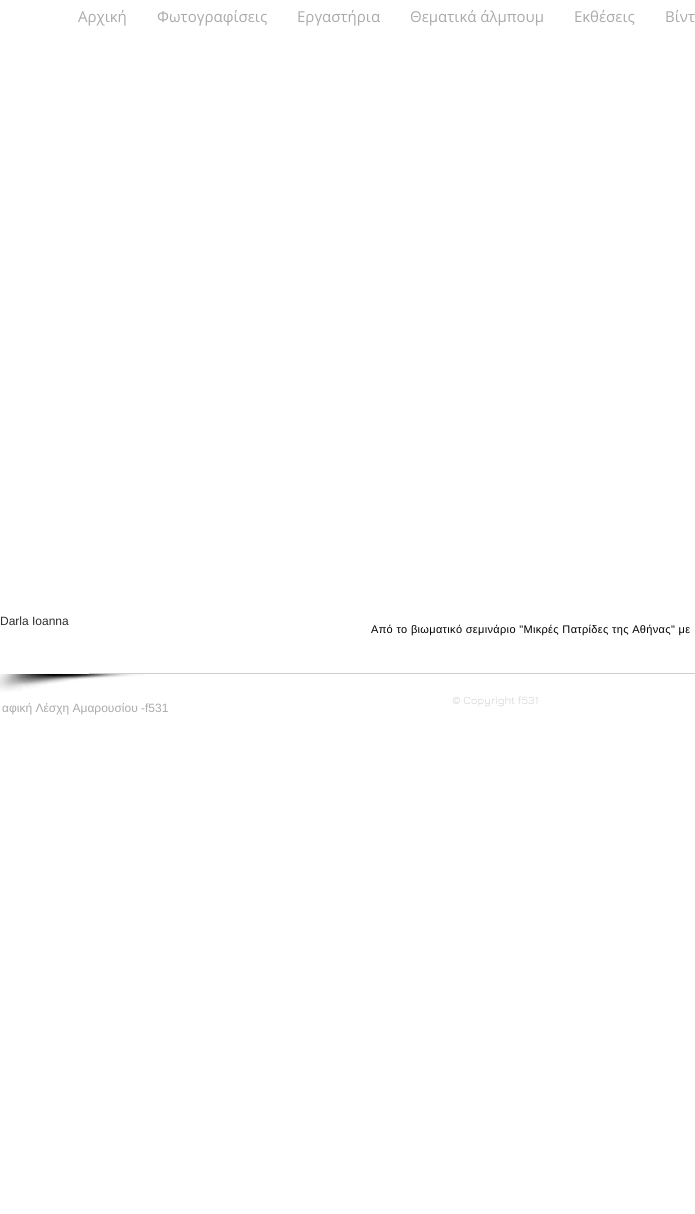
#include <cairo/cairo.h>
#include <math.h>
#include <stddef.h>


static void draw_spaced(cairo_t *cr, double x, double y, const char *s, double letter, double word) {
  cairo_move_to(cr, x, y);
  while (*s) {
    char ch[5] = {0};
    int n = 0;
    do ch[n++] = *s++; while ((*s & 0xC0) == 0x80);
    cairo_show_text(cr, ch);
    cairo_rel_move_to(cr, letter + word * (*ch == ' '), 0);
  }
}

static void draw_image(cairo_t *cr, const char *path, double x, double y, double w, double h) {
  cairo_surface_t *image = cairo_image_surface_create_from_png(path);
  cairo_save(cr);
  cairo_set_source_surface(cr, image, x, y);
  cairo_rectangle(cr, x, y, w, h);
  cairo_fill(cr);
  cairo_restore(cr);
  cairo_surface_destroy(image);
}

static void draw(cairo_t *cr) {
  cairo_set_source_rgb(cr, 1, 1, 1);
  cairo_paint(cr);
  draw_image(cr, "images/1.png", 0, 674, 145, 18);
  cairo_set_source_rgb(cr, 206 / 255.0, 206 / 255.0, 206 / 255.0);
  cairo_rectangle(cr, 89, 673, 606, 1);
  cairo_fill(cr);
  cairo_select_font_face(cr, "Open Sans", CAIRO_FONT_SLANT_NORMAL, CAIRO_FONT_WEIGHT_NORMAL);
  cairo_set_font_size(cr, 15);
  cairo_set_source_rgb(cr, 170 / 255.0, 170 / 255.0, 170 / 255.0);
  cairo_move_to(cr, 78, 22);
  cairo_show_text(cr, "Αρχική");
  cairo_move_to(cr, 157, 22);
  cairo_show_text(cr, "Φωτογραφίσεις");
  cairo_move_to(cr, 297, 22);
  cairo_show_text(cr, "Εργαστήρια");
  cairo_move_to(cr, 410, 22);
  cairo_show_text(cr, "Θεματικά άλμπουμ");
  cairo_move_to(cr, 574, 22);
  cairo_show_text(cr, "Εκθέσεις");
  cairo_move_to(cr, 665, 22);
  cairo_show_text(cr, "Βίντ");
  cairo_select_font_face(cr, "Liberation Sans", CAIRO_FONT_SLANT_NORMAL, CAIRO_FONT_WEIGHT_NORMAL);
  cairo_set_font_size(cr, 12);
  cairo_set_source_rgb(cr, 48 / 255.0, 45 / 255.0, 45 / 255.0);
  cairo_move_to(cr, 0, 625);
  cairo_show_text(cr, "Darla Ioanna");
  cairo_set_font_size(cr, 11);
  cairo_set_source_rgb(cr, 0, 0, 0);
  draw_spaced(cr, 371, 633, "Από το βιωματικό σεμινάριο \"Μικρές Πατρίδες της Αθήνας\" με", 0.33, 0);
  cairo_set_font_size(cr, 12);
  cairo_set_source_rgb(cr, 170 / 255.0, 170 / 255.0, 170 / 255.0);
  cairo_move_to(cr, 2, 712);
  cairo_show_text(cr, "αφική Λέσχη Αμαρουσίου -f531");
  cairo_select_font_face(cr, "Jura", CAIRO_FONT_SLANT_NORMAL, CAIRO_FONT_WEIGHT_NORMAL);
  cairo_set_font_size(cr, 11);
  cairo_set_source_rgb(cr, 209 / 255.0, 209 / 255.0, 209 / 255.0);
  cairo_move_to(cr, 452, 704);
  cairo_show_text(cr, "© Copyright f531");
}

int main(void) {
  cairo_surface_t *surface = cairo_image_surface_create(CAIRO_FORMAT_RGB24, 695, 1214);
  cairo_t *cr = cairo_create(surface);
  cairo_font_options_t *options = cairo_font_options_create();
  cairo_font_options_set_hint_metrics(options, CAIRO_HINT_METRICS_OFF);
  cairo_font_options_set_hint_style(options, CAIRO_HINT_STYLE_NONE);
  cairo_set_font_options(cr, options);
  cairo_set_miter_limit(cr, 4);
  draw(cr);
  cairo_surface_write_to_png(surface, "out.png");
  cairo_font_options_destroy(options);
  cairo_destroy(cr);
  cairo_surface_destroy(surface);
  return 0;
}
